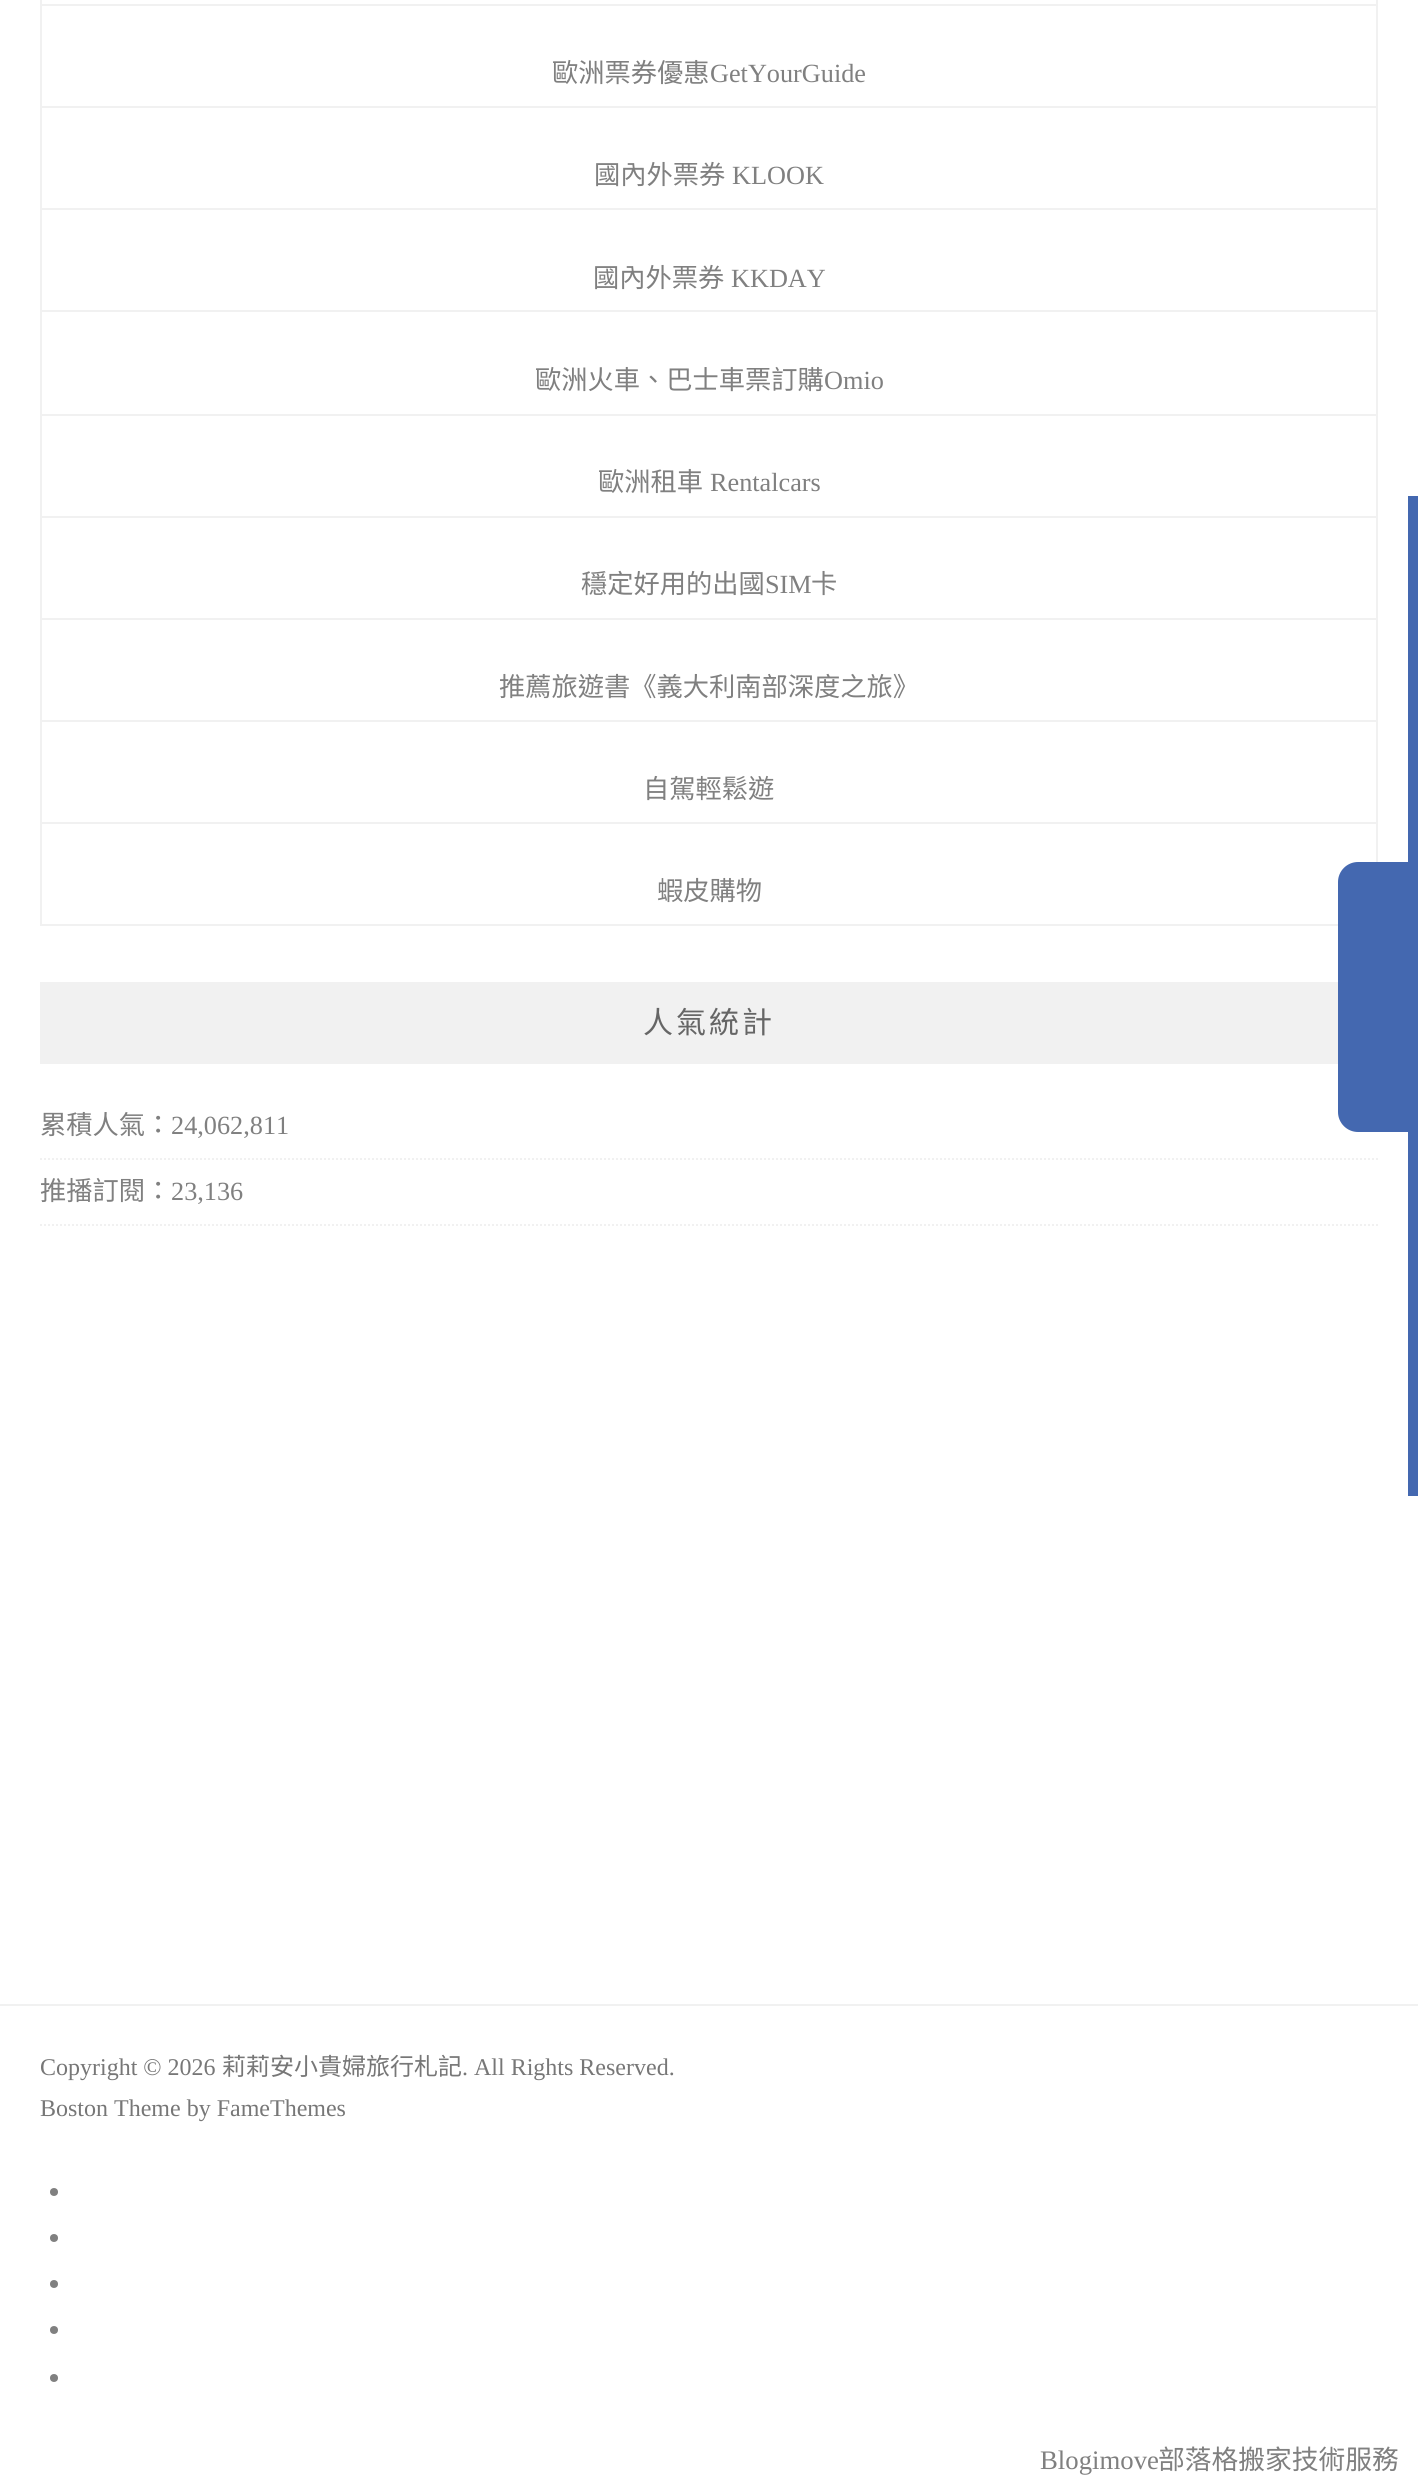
#include <cairo/cairo.h>
#include <math.h>
#include <stddef.h>


static void draw_spaced(cairo_t *cr, double x, double y, const char *s, double letter, double word) {
  cairo_move_to(cr, x, y);
  while (*s) {
    char ch[5] = {0};
    int n = 0;
    do ch[n++] = *s++; while ((*s & 0xC0) == 0x80);
    cairo_show_text(cr, ch);
    cairo_rel_move_to(cr, letter + word * (*ch == ' '), 0);
  }
}

static void draw(cairo_t *cr) {
  cairo_set_source_rgb(cr, 1, 1, 1);
  cairo_paint(cr);
  cairo_set_source_rgb(cr, 241 / 255.0, 241 / 255.0, 241 / 255.0);
  cairo_rectangle(cr, 1376, 0, 2, 862);
  cairo_fill(cr);
  cairo_rectangle(cr, 40, 924, 1298, 2);
  cairo_fill(cr);
  cairo_rectangle(cr, 40, 0, 2, 926);
  cairo_fill(cr);
  cairo_rectangle(cr, 40, 4, 1338, 2);
  cairo_fill(cr);
  cairo_rectangle(cr, 40, 106, 1338, 2);
  cairo_fill(cr);
  cairo_rectangle(cr, 40, 208, 1338, 2);
  cairo_fill(cr);
  cairo_rectangle(cr, 40, 310, 1338, 2);
  cairo_fill(cr);
  cairo_rectangle(cr, 40, 414, 1338, 2);
  cairo_fill(cr);
  cairo_rectangle(cr, 40, 516, 1338, 2);
  cairo_fill(cr);
  cairo_rectangle(cr, 40, 618, 1338, 2);
  cairo_fill(cr);
  cairo_rectangle(cr, 40, 720, 1338, 2);
  cairo_fill(cr);
  cairo_rectangle(cr, 40, 822, 1338, 2);
  cairo_fill(cr);
  cairo_rectangle(cr, 40, 982, 1298, 82);
  cairo_fill(cr);
  cairo_new_path(cr);
  cairo_move_to(cr, 40, 1159);
  cairo_line_to(cr, 1378, 1159);
  cairo_set_dash(cr, (double[]){2, 2}, 2, 0);
  cairo_stroke(cr);
  cairo_new_path(cr);
  cairo_move_to(cr, 40, 1225);
  cairo_line_to(cr, 1378, 1225);
  cairo_stroke(cr);
  cairo_rectangle(cr, 0, 2004, 1418, 2);
  cairo_fill(cr);
  cairo_set_source_rgb(cr, 68 / 255.0, 104 / 255.0, 176 / 255.0);
  cairo_rectangle(cr, 1408, 496, 10, 1000);
  cairo_fill(cr);
  cairo_new_path(cr);
  cairo_move_to(cr, 1358, 862);
  cairo_line_to(cr, 1418, 862);
  cairo_line_to(cr, 1418, 1132);
  cairo_line_to(cr, 1358, 1132);
  cairo_curve_to(cr, 1347, 1132, 1338, 1123, 1338, 1112);
  cairo_line_to(cr, 1338, 882);
  cairo_curve_to(cr, 1338, 871, 1347, 862, 1358, 862);
  cairo_close_path(cr);
  cairo_fill(cr);
  cairo_set_source_rgb(cr, 128 / 255.0, 128 / 255.0, 128 / 255.0);
  cairo_arc(cr, 54, 2192, 4, 0, 2 * M_PI);
  cairo_fill(cr);
  cairo_arc(cr, 54, 2238, 4, 0, 2 * M_PI);
  cairo_fill(cr);
  cairo_arc(cr, 54, 2284, 4, 0, 2 * M_PI);
  cairo_fill(cr);
  cairo_arc(cr, 54, 2330, 4, 0, 2 * M_PI);
  cairo_fill(cr);
  cairo_arc(cr, 54, 2378, 4, 0, 2 * M_PI);
  cairo_fill(cr);
  cairo_select_font_face(cr, "Noto Sans CJK TC", CAIRO_FONT_SLANT_NORMAL, CAIRO_FONT_WEIGHT_NORMAL);
  cairo_set_font_size(cr, 26.25);
  cairo_move_to(cr, 552, 82);
  cairo_show_text(cr, "歐洲票券優惠");
  cairo_select_font_face(cr, "Liberation Serif", CAIRO_FONT_SLANT_NORMAL, CAIRO_FONT_WEIGHT_NORMAL);
  cairo_move_to(cr, 710, 82);
  cairo_show_text(cr, "GetYourGuide");
  cairo_select_font_face(cr, "Noto Sans CJK TC", CAIRO_FONT_SLANT_NORMAL, CAIRO_FONT_WEIGHT_NORMAL);
  cairo_move_to(cr, 594, 184);
  cairo_show_text(cr, "國內外票券");
  cairo_select_font_face(cr, "Liberation Serif", CAIRO_FONT_SLANT_NORMAL, CAIRO_FONT_WEIGHT_NORMAL);
  cairo_move_to(cr, 732, 184);
  cairo_show_text(cr, "KLOOK");
  cairo_select_font_face(cr, "Noto Sans CJK TC", CAIRO_FONT_SLANT_NORMAL, CAIRO_FONT_WEIGHT_NORMAL);
  cairo_move_to(cr, 593, 287);
  cairo_show_text(cr, "國內外票券");
  cairo_select_font_face(cr, "Liberation Serif", CAIRO_FONT_SLANT_NORMAL, CAIRO_FONT_WEIGHT_NORMAL);
  cairo_move_to(cr, 731, 287);
  cairo_show_text(cr, "KKDAY");
  cairo_select_font_face(cr, "Noto Sans CJK TC", CAIRO_FONT_SLANT_NORMAL, CAIRO_FONT_WEIGHT_NORMAL);
  cairo_move_to(cr, 535, 389);
  cairo_show_text(cr, "歐洲火車、巴士車票訂購");
  cairo_select_font_face(cr, "Liberation Serif", CAIRO_FONT_SLANT_NORMAL, CAIRO_FONT_WEIGHT_NORMAL);
  cairo_move_to(cr, 824, 389);
  cairo_show_text(cr, "Omio");
  cairo_select_font_face(cr, "Noto Sans CJK TC", CAIRO_FONT_SLANT_NORMAL, CAIRO_FONT_WEIGHT_NORMAL);
  cairo_move_to(cr, 598, 491);
  cairo_show_text(cr, "歐洲租車");
  cairo_select_font_face(cr, "Liberation Serif", CAIRO_FONT_SLANT_NORMAL, CAIRO_FONT_WEIGHT_NORMAL);
  cairo_move_to(cr, 710, 491);
  cairo_show_text(cr, "Rentalcars");
  cairo_select_font_face(cr, "Noto Sans CJK TC", CAIRO_FONT_SLANT_NORMAL, CAIRO_FONT_WEIGHT_NORMAL);
  cairo_move_to(cr, 581, 593);
  cairo_show_text(cr, "穩定好用的出國");
  cairo_select_font_face(cr, "Liberation Serif", CAIRO_FONT_SLANT_NORMAL, CAIRO_FONT_WEIGHT_NORMAL);
  cairo_move_to(cr, 765, 593);
  cairo_show_text(cr, "SIM");
  cairo_select_font_face(cr, "Noto Sans CJK TC", CAIRO_FONT_SLANT_NORMAL, CAIRO_FONT_WEIGHT_NORMAL);
  cairo_move_to(cr, 811, 593);
  cairo_show_text(cr, "卡");
  cairo_move_to(cr, 499, 696);
  cairo_show_text(cr, "推薦旅遊書《義大利南部深度之旅》");
  cairo_move_to(cr, 643, 798);
  cairo_show_text(cr, "自駕輕鬆遊");
  cairo_move_to(cr, 657, 900);
  cairo_show_text(cr, "蝦皮購物");
  cairo_set_font_size(cr, 30);
  cairo_set_source_rgb(cr, 102 / 255.0, 102 / 255.0, 102 / 255.0);
  draw_spaced(cr, 643, 1033, "人氣統計", 3, 0);
  cairo_set_font_size(cr, 26.25);
  cairo_set_source_rgb(cr, 128 / 255.0, 128 / 255.0, 128 / 255.0);
  cairo_move_to(cr, 40, 1134);
  cairo_show_text(cr, "累積人氣：");
  cairo_select_font_face(cr, "Liberation Serif", CAIRO_FONT_SLANT_NORMAL, CAIRO_FONT_WEIGHT_NORMAL);
  cairo_move_to(cr, 171, 1134);
  cairo_show_text(cr, "24,062,811");
  cairo_select_font_face(cr, "Noto Sans CJK TC", CAIRO_FONT_SLANT_NORMAL, CAIRO_FONT_WEIGHT_NORMAL);
  cairo_move_to(cr, 40, 1200);
  cairo_show_text(cr, "推播訂閱：");
  cairo_select_font_face(cr, "Liberation Serif", CAIRO_FONT_SLANT_NORMAL, CAIRO_FONT_WEIGHT_NORMAL);
  cairo_move_to(cr, 171, 1200);
  cairo_show_text(cr, "23,136");
  cairo_set_font_size(cr, 24);
  cairo_set_source_rgb(cr, 119 / 255.0, 119 / 255.0, 119 / 255.0);
  cairo_move_to(cr, 40, 2075);
  cairo_show_text(cr, "Copyright © 2026");
  cairo_select_font_face(cr, "Noto Sans CJK TC", CAIRO_FONT_SLANT_NORMAL, CAIRO_FONT_WEIGHT_NORMAL);
  cairo_move_to(cr, 222, 2075);
  cairo_show_text(cr, "莉莉安小貴婦旅行札記");
  cairo_select_font_face(cr, "Liberation Serif", CAIRO_FONT_SLANT_NORMAL, CAIRO_FONT_WEIGHT_NORMAL);
  cairo_move_to(cr, 462, 2075);
  cairo_show_text(cr, ". All Rights Reserved.");
  cairo_move_to(cr, 40, 2116);
  cairo_show_text(cr, "Boston Theme by FameThemes");
  cairo_set_font_size(cr, 26.75);
  cairo_set_source_rgb(cr, 128 / 255.0, 128 / 255.0, 128 / 255.0);
  cairo_move_to(cr, 1040, 2469);
  cairo_show_text(cr, "Blogimove");
  cairo_select_font_face(cr, "Noto Sans CJK TC", CAIRO_FONT_SLANT_NORMAL, CAIRO_FONT_WEIGHT_NORMAL);
  cairo_move_to(cr, 1158, 2469);
  cairo_show_text(cr, "部落格搬家技術服務");
}

int main(void) {
  cairo_surface_t *surface = cairo_image_surface_create(CAIRO_FORMAT_RGB24, 1418, 2484);
  cairo_t *cr = cairo_create(surface);
  cairo_font_options_t *options = cairo_font_options_create();
  cairo_font_options_set_hint_metrics(options, CAIRO_HINT_METRICS_OFF);
  cairo_font_options_set_hint_style(options, CAIRO_HINT_STYLE_NONE);
  cairo_set_font_options(cr, options);
  cairo_set_miter_limit(cr, 4);
  draw(cr);
  cairo_surface_write_to_png(surface, "out.png");
  cairo_font_options_destroy(options);
  cairo_destroy(cr);
  cairo_surface_destroy(surface);
  return 0;
}
